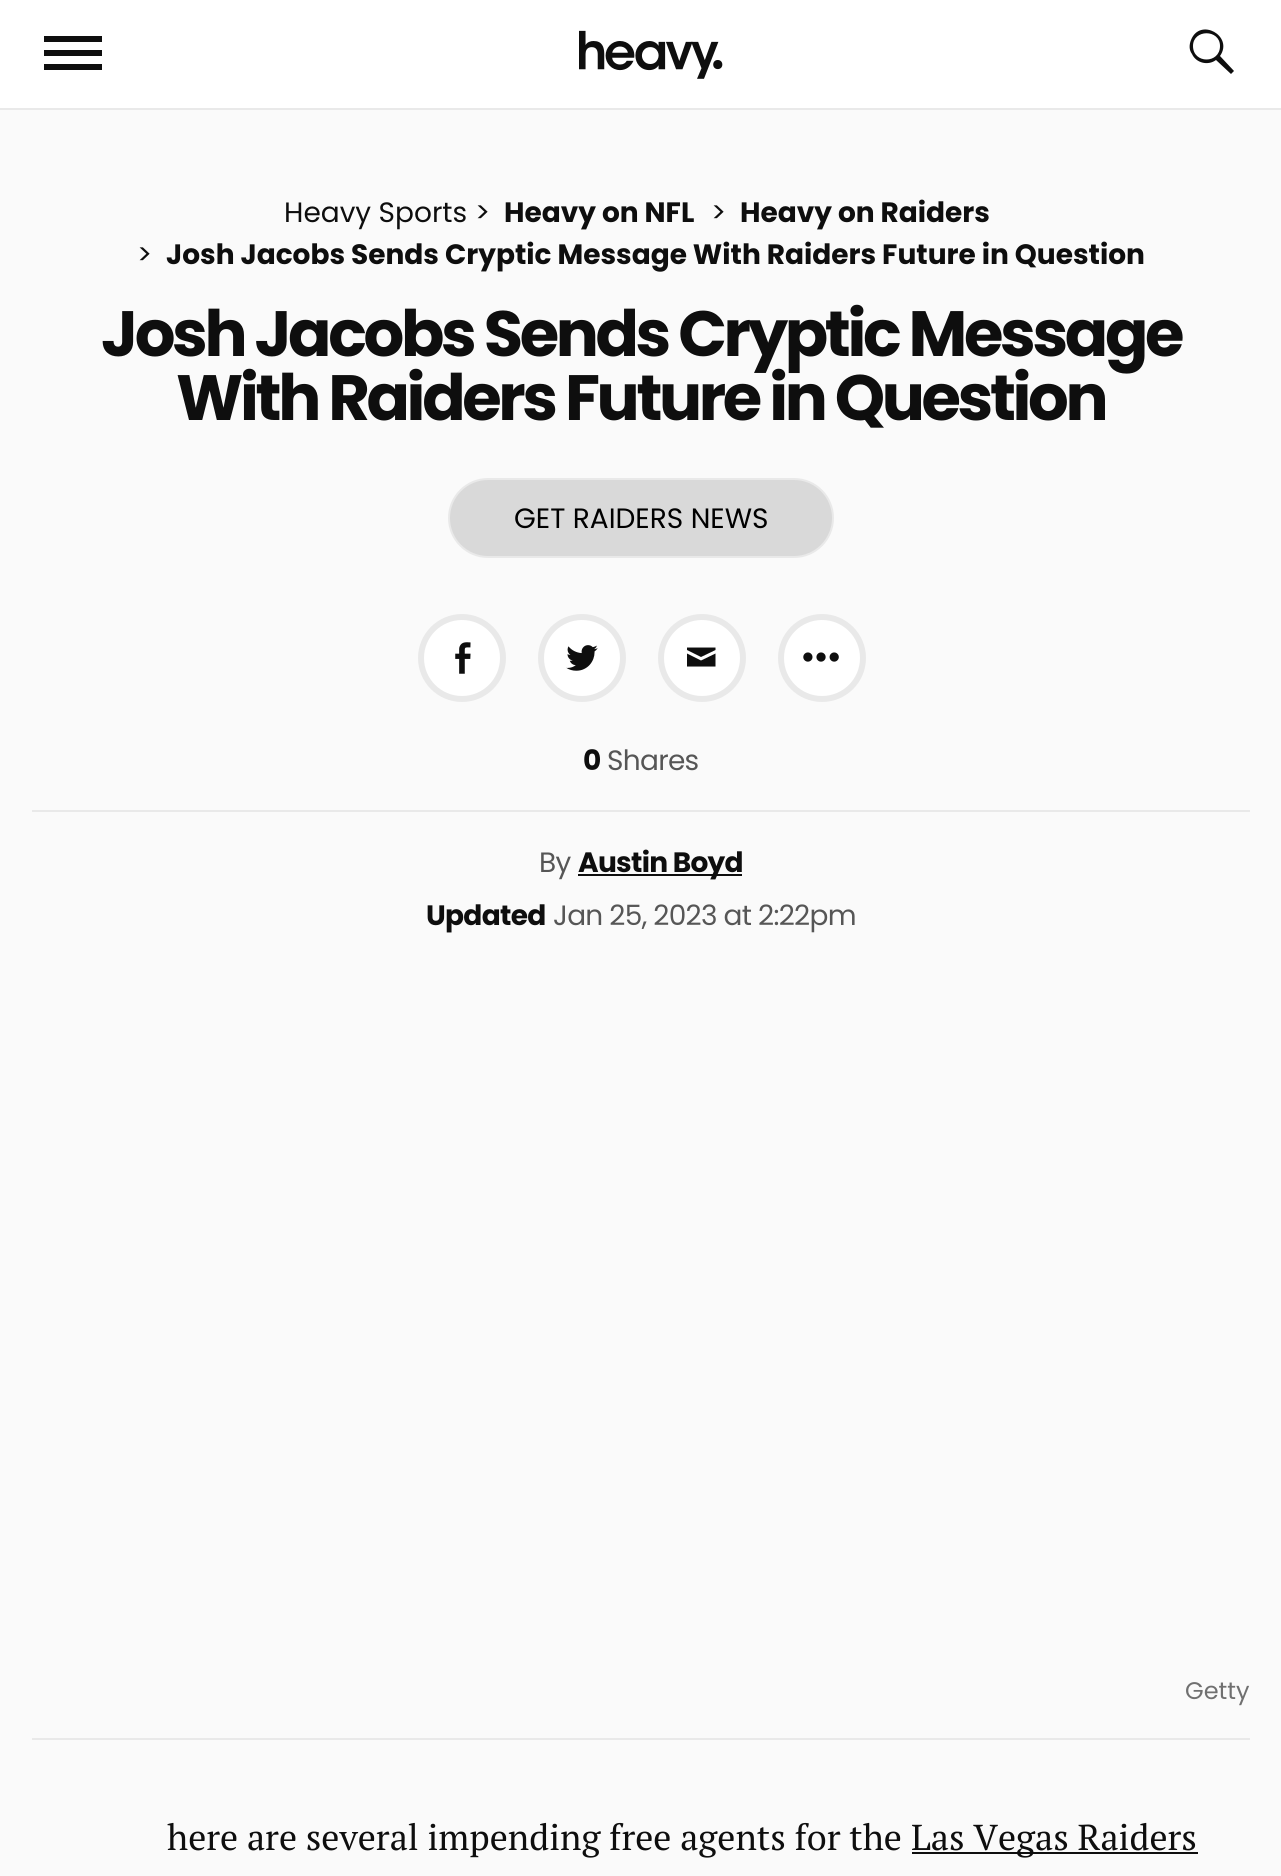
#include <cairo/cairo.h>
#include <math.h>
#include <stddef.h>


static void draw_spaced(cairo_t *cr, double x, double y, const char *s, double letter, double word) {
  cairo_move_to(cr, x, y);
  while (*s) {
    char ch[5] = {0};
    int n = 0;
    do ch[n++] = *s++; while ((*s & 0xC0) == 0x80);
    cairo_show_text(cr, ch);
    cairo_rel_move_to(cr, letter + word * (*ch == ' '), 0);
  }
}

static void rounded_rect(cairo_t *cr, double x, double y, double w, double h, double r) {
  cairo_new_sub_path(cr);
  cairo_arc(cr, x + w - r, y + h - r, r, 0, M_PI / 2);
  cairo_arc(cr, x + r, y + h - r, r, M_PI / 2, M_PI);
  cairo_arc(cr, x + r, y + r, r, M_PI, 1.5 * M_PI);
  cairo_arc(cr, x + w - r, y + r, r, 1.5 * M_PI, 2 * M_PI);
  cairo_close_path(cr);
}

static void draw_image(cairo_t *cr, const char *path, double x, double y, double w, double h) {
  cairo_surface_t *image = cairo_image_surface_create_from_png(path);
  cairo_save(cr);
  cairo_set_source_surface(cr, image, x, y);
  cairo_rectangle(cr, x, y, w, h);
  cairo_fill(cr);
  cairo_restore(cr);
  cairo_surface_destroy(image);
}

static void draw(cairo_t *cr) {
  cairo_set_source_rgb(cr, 250 / 255.0, 250 / 255.0, 250 / 255.0);
  cairo_paint(cr);
  cairo_set_source_rgb(cr, 233 / 255.0, 233 / 255.0, 233 / 255.0);
  cairo_rectangle(cr, 0, 108, 1281, 2);
  cairo_fill(cr);
  cairo_set_source_rgb(cr, 1, 1, 1);
  cairo_rectangle(cr, 0, 0, 1281, 108);
  cairo_fill(cr);
  cairo_set_source_rgb(cr, 14 / 255.0, 14 / 255.0, 14 / 255.0);
  cairo_rectangle(cr, 44, 64, 58, 6);
  cairo_fill(cr);
  cairo_rectangle(cr, 44, 50, 58, 6);
  cairo_fill(cr);
  cairo_rectangle(cr, 44, 36, 58, 6);
  cairo_fill(cr);
  draw_image(cr, "images/1.png", 579, 30, 144, 49);
  cairo_new_path(cr);
  cairo_move_to(cr, 1234, 71);
  cairo_line_to(cr, 1231, 74);
  cairo_line_to(cr, 1216, 60);
  cairo_curve_to(cr, 1208, 66, 1196, 63, 1192, 54);
  cairo_curve_to(cr, 1189, 50, 1189, 45, 1191, 40);
  cairo_curve_to(cr, 1200, 17, 1234, 36, 1220, 56);
  cairo_close_path(cr);
  cairo_move_to(cr, 1193, 46);
  cairo_curve_to(cr, 1193, 64, 1220, 64, 1220, 46);
  cairo_curve_to(cr, 1220, 29, 1193, 29, 1193, 46);
  cairo_close_path(cr);
  cairo_fill(cr);
  cairo_set_source_rgb(cr, 217 / 255.0, 217 / 255.0, 217 / 255.0);
  rounded_rect(cr, 449, 479, 384, 78, 39);
  cairo_fill_preserve(cr);
  cairo_set_source_rgb(cr, 233 / 255.0, 233 / 255.0, 233 / 255.0);
  cairo_stroke(cr);
  cairo_set_source_rgb(cr, 1, 1, 1);
  cairo_arc(cr, 462, 658, 41, 0, 2 * M_PI);
  cairo_fill_preserve(cr);
  cairo_set_source_rgb(cr, 233 / 255.0, 233 / 255.0, 233 / 255.0);
  cairo_set_line_width(cr, 6);
  cairo_stroke(cr);
  draw_image(cr, "images/2.png", 455, 642, 16, 32);
  cairo_set_source_rgb(cr, 1, 1, 1);
  cairo_arc(cr, 582, 658, 41, 0, 2 * M_PI);
  cairo_fill_preserve(cr);
  cairo_set_source_rgb(cr, 233 / 255.0, 233 / 255.0, 233 / 255.0);
  cairo_stroke(cr);
  draw_image(cr, "images/3.png", 566, 645, 32, 26);
  cairo_set_source_rgb(cr, 1, 1, 1);
  cairo_arc(cr, 702, 658, 41, 0, 2 * M_PI);
  cairo_fill_preserve(cr);
  cairo_set_source_rgb(cr, 233 / 255.0, 233 / 255.0, 233 / 255.0);
  cairo_stroke(cr);
  cairo_set_source_rgb(cr, 14 / 255.0, 14 / 255.0, 14 / 255.0);
  cairo_new_path(cr);
  cairo_move_to(cr, 687, 647.5);
  cairo_line_to(cr, 715.5, 647.5);
  cairo_line_to(cr, 715.5, 650);
  cairo_line_to(cr, 701, 657);
  cairo_line_to(cr, 687, 650);
  cairo_close_path(cr);
  cairo_move_to(cr, 687, 653.5);
  cairo_line_to(cr, 701, 660.5);
  cairo_line_to(cr, 715.5, 653.5);
  cairo_line_to(cr, 715.5, 666.5);
  cairo_line_to(cr, 687, 666.5);
  cairo_close_path(cr);
  cairo_fill(cr);
  cairo_set_source_rgb(cr, 1, 1, 1);
  cairo_arc(cr, 822, 658, 41, 0, 2 * M_PI);
  cairo_fill_preserve(cr);
  cairo_set_source_rgb(cr, 233 / 255.0, 233 / 255.0, 233 / 255.0);
  cairo_stroke(cr);
  draw_image(cr, "images/4.png", 803, 652, 36, 10);
  cairo_rectangle(cr, 32, 810, 1218, 2);
  cairo_fill(cr);
  cairo_set_source_rgb(cr, 14 / 255.0, 14 / 255.0, 14 / 255.0);
  cairo_rectangle(cr, 578, 874, 164, 2);
  cairo_fill(cr);
  cairo_set_source_rgb(cr, 233 / 255.0, 233 / 255.0, 233 / 255.0);
  cairo_rectangle(cr, 32, 1738, 1218, 2);
  cairo_fill(cr);
  cairo_set_source_rgb(cr, 14 / 255.0, 14 / 255.0, 14 / 255.0);
  cairo_rectangle(cr, 912, 1852, 286, 2);
  cairo_fill(cr);
  cairo_select_font_face(cr, "Poppins", CAIRO_FONT_SLANT_NORMAL, CAIRO_FONT_WEIGHT_NORMAL);
  cairo_set_font_size(cr, 28);
  cairo_move_to(cr, 284, 222);
  cairo_show_text(cr, "Heavy Sports");
  cairo_move_to(cr, 475, 222);
  cairo_show_text(cr, ">");
  cairo_select_font_face(cr, "Poppins", CAIRO_FONT_SLANT_NORMAL, CAIRO_FONT_WEIGHT_BOLD);
  cairo_move_to(cr, 504, 222);
  cairo_show_text(cr, "Heavy on NFL");
  cairo_select_font_face(cr, "Poppins", CAIRO_FONT_SLANT_NORMAL, CAIRO_FONT_WEIGHT_NORMAL);
  cairo_move_to(cr, 711, 222);
  cairo_show_text(cr, ">");
  cairo_select_font_face(cr, "Poppins", CAIRO_FONT_SLANT_NORMAL, CAIRO_FONT_WEIGHT_BOLD);
  cairo_move_to(cr, 740, 222);
  cairo_show_text(cr, "Heavy on Raiders");
  cairo_select_font_face(cr, "Poppins", CAIRO_FONT_SLANT_NORMAL, CAIRO_FONT_WEIGHT_NORMAL);
  cairo_move_to(cr, 137, 264);
  cairo_show_text(cr, ">");
  cairo_select_font_face(cr, "Poppins", CAIRO_FONT_SLANT_NORMAL, CAIRO_FONT_WEIGHT_BOLD);
  cairo_move_to(cr, 166, 264);
  cairo_show_text(cr, "Josh Jacobs Sends Cryptic Message With Raiders Future in Question");
  cairo_set_font_size(cr, 64);
  draw_spaced(cr, 101, 356, "Josh Jacobs Sends Cryptic Message", -3.35, 0);
  draw_spaced(cr, 176, 420, "With Raiders Future in Question", -3.35, 0);
  cairo_select_font_face(cr, "Poppins", CAIRO_FONT_SLANT_NORMAL, CAIRO_FONT_WEIGHT_NORMAL);
  cairo_set_font_size(cr, 28);
  cairo_set_source_rgb(cr, 0, 0, 0);
  cairo_move_to(cr, 514, 528);
  cairo_show_text(cr, "GET RAIDERS NEWS");
  cairo_select_font_face(cr, "Poppins", CAIRO_FONT_SLANT_NORMAL, CAIRO_FONT_WEIGHT_BOLD);
  cairo_set_source_rgb(cr, 14 / 255.0, 14 / 255.0, 14 / 255.0);
  draw_spaced(cr, 583, 770, "0", -0.7, 0);
  cairo_select_font_face(cr, "Poppins", CAIRO_FONT_SLANT_NORMAL, CAIRO_FONT_WEIGHT_NORMAL);
  cairo_set_source_rgb(cr, 86 / 255.0, 86 / 255.0, 86 / 255.0);
  draw_spaced(cr, 607, 770, "Shares", -0.7, 0);
  draw_spaced(cr, 539, 872, "By", -0.7, 0);
  cairo_select_font_face(cr, "Poppins", CAIRO_FONT_SLANT_NORMAL, CAIRO_FONT_WEIGHT_BOLD);
  cairo_set_source_rgb(cr, 14 / 255.0, 14 / 255.0, 14 / 255.0);
  draw_spaced(cr, 578, 872, "Austin Boyd", -0.7, 0);
  draw_spaced(cr, 426, 925, "Updated", -0.7, 0);
  cairo_select_font_face(cr, "Poppins", CAIRO_FONT_SLANT_NORMAL, CAIRO_FONT_WEIGHT_NORMAL);
  cairo_set_source_rgb(cr, 86 / 255.0, 86 / 255.0, 86 / 255.0);
  draw_spaced(cr, 553, 925, "Jan 25, 2023 at 2:22pm", -0.7, 0);
  cairo_set_font_size(cr, 24);
  cairo_set_source_rgb(cr, 112 / 255.0, 112 / 255.0, 112 / 255.0);
  cairo_move_to(cr, 1185, 1699);
  cairo_show_text(cr, "Getty");
  cairo_select_font_face(cr, "PT Serif", CAIRO_FONT_SLANT_NORMAL, CAIRO_FONT_WEIGHT_NORMAL);
  cairo_set_font_size(cr, 36);
  cairo_set_source_rgb(cr, 14 / 255.0, 14 / 255.0, 14 / 255.0);
  cairo_move_to(cr, 167, 1850);
  cairo_show_text(cr, "here are several impending free agents for the");
  cairo_move_to(cr, 911, 1850);
  cairo_show_text(cr, "Las Vegas Raiders");
}

int main(void) {
  cairo_surface_t *surface = cairo_image_surface_create(CAIRO_FORMAT_RGB24, 1281, 1876);
  cairo_t *cr = cairo_create(surface);
  cairo_font_options_t *options = cairo_font_options_create();
  cairo_font_options_set_hint_metrics(options, CAIRO_HINT_METRICS_OFF);
  cairo_font_options_set_hint_style(options, CAIRO_HINT_STYLE_NONE);
  cairo_set_font_options(cr, options);
  cairo_set_miter_limit(cr, 4);
  draw(cr);
  cairo_surface_write_to_png(surface, "out.png");
  cairo_font_options_destroy(options);
  cairo_destroy(cr);
  cairo_surface_destroy(surface);
  return 0;
}
